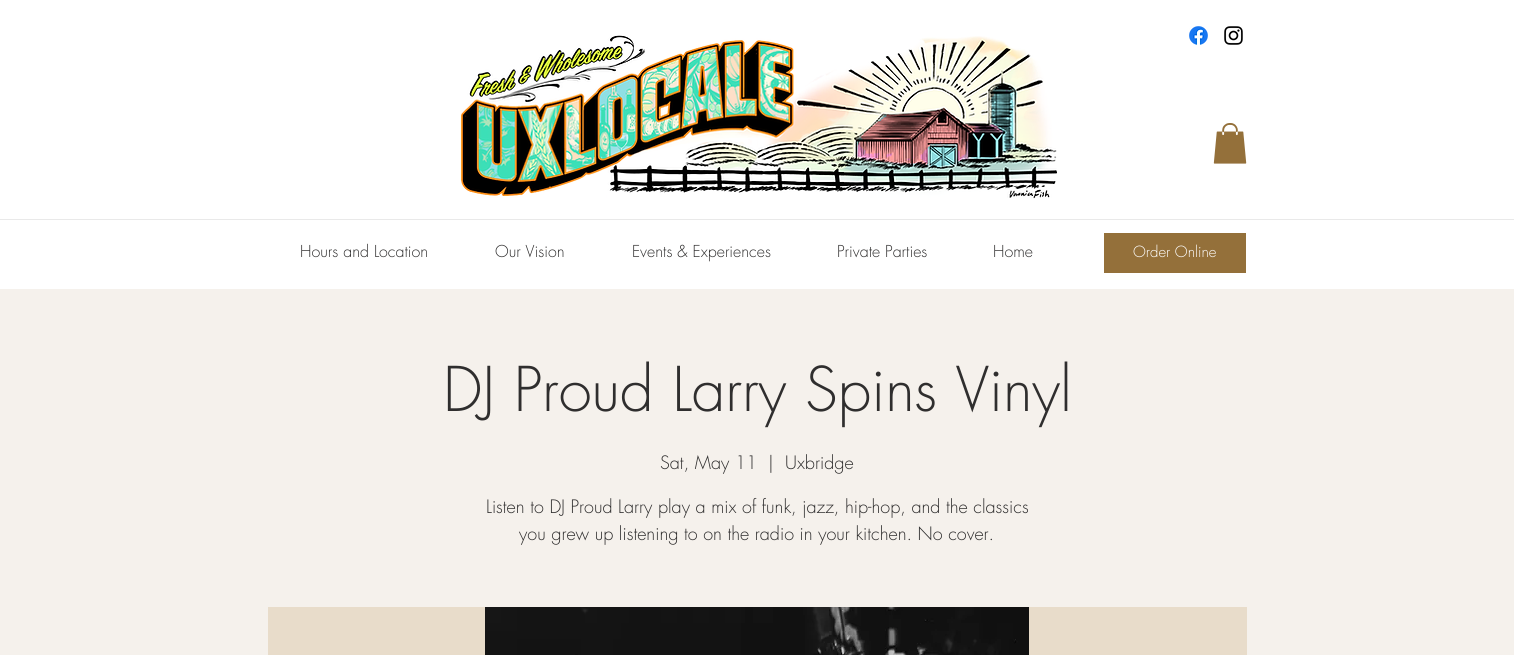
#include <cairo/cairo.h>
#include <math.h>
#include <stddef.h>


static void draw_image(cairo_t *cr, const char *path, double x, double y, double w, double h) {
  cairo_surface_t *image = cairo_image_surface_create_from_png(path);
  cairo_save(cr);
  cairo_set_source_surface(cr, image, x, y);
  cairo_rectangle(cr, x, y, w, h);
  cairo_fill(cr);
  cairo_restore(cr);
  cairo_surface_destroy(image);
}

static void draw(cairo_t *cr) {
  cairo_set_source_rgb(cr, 1, 1, 1);
  cairo_paint(cr);
  draw_image(cr, "images/1.png", 460, 35, 597, 164);
  draw_image(cr, "images/2.png", 1189, 26, 19, 19);
  draw_image(cr, "images/3.png", 1224, 26, 19, 19);
  draw_image(cr, "images/5.png", 1223, 135, 1, 1);
  draw_image(cr, "images/4.png", 1213, 123, 34, 41);
  cairo_set_source_rgb(cr, 233 / 255.0, 233 / 255.0, 233 / 255.0);
  cairo_rectangle(cr, 0, 219, 1514, 1);
  cairo_fill(cr);
  cairo_set_source_rgb(cr, 148 / 255.0, 112 / 255.0, 58 / 255.0);
  cairo_rectangle(cr, 1104, 233, 142, 40);
  cairo_fill(cr);
  cairo_set_source_rgb(cr, 245 / 255.0, 241 / 255.0, 236 / 255.0);
  cairo_rectangle(cr, 0, 289, 1514, 366);
  cairo_fill(cr);
  cairo_set_source_rgb(cr, 232 / 255.0, 220 / 255.0, 202 / 255.0);
  cairo_rectangle(cr, 268, 607, 979, 48);
  cairo_fill(cr);
  draw_image(cr, "images/6.png", 485, 607, 544, 48);
  cairo_select_font_face(cr, "futura Light", CAIRO_FONT_SLANT_NORMAL, CAIRO_FONT_WEIGHT_NORMAL);
  cairo_set_font_size(cr, 16);
  cairo_set_source_rgb(cr, 47 / 255.0, 46 / 255.0, 46 / 255.0);
  cairo_move_to(cr, 300, 257);
  cairo_show_text(cr, "Hours and Location");
  cairo_move_to(cr, 495, 257);
  cairo_show_text(cr, "Our Vision");
  cairo_move_to(cr, 632, 257);
  cairo_show_text(cr, "Events & Experiences");
  cairo_move_to(cr, 837, 257);
  cairo_show_text(cr, "Private Parties");
  cairo_move_to(cr, 993, 257);
  cairo_show_text(cr, "Home");
  cairo_set_font_size(cr, 15);
  cairo_set_source_rgb(cr, 1, 1, 1);
  cairo_move_to(cr, 1133, 257);
  cairo_show_text(cr, "Order Online");
  cairo_set_font_size(cr, 60);
  cairo_set_source_rgb(cr, 47 / 255.0, 46 / 255.0, 46 / 255.0);
  cairo_move_to(cr, 443, 411);
  cairo_show_text(cr, "DJ Proud Larry Spins Vinyl");
  cairo_set_font_size(cr, 18);
  cairo_move_to(cr, 660, 469);
  cairo_show_text(cr, "Sat, May 11");
  cairo_move_to(cr, 768, 469);
  cairo_show_text(cr, "|");
  cairo_move_to(cr, 785, 469);
  cairo_show_text(cr, "Uxbridge");
  cairo_move_to(cr, 486, 513);
  cairo_show_text(cr, "Listen to DJ Proud Larry play a mix of funk, jazz, hip-hop, and the classics");
  cairo_move_to(cr, 519, 540);
  cairo_show_text(cr, "you grew up listening to on the radio in your kitchen. No cover.");
}

int main(void) {
  cairo_surface_t *surface = cairo_image_surface_create(CAIRO_FORMAT_RGB24, 1514, 655);
  cairo_t *cr = cairo_create(surface);
  cairo_font_options_t *options = cairo_font_options_create();
  cairo_font_options_set_hint_metrics(options, CAIRO_HINT_METRICS_OFF);
  cairo_font_options_set_hint_style(options, CAIRO_HINT_STYLE_NONE);
  cairo_set_font_options(cr, options);
  cairo_set_miter_limit(cr, 4);
  draw(cr);
  cairo_surface_write_to_png(surface, "out.png");
  cairo_font_options_destroy(options);
  cairo_destroy(cr);
  cairo_surface_destroy(surface);
  return 0;
}
